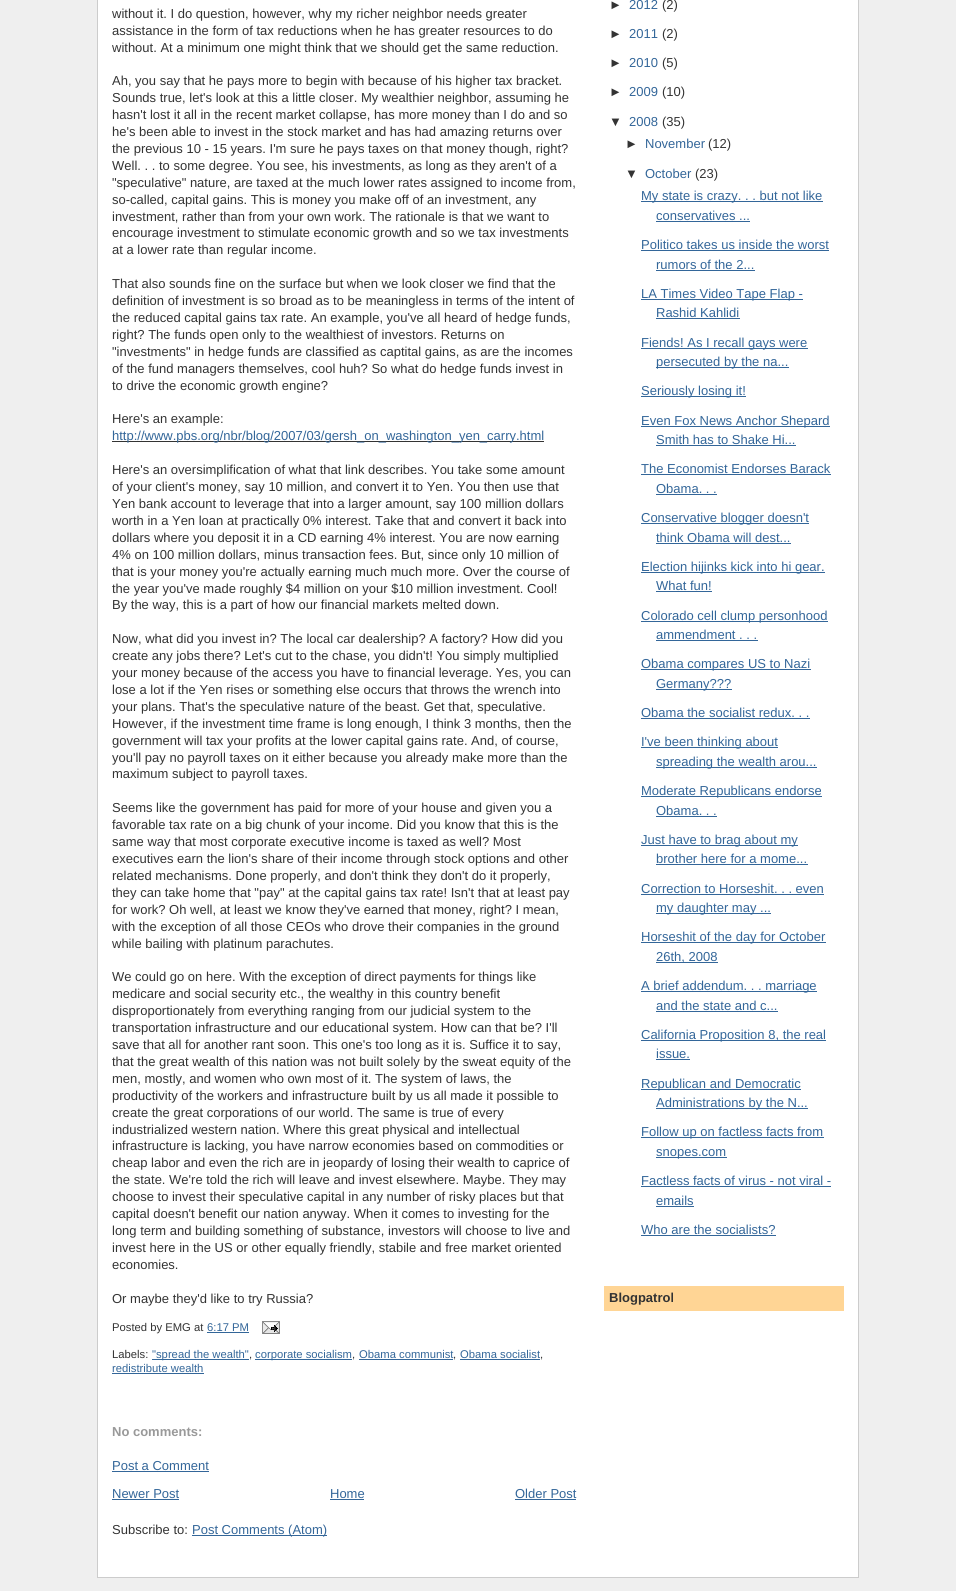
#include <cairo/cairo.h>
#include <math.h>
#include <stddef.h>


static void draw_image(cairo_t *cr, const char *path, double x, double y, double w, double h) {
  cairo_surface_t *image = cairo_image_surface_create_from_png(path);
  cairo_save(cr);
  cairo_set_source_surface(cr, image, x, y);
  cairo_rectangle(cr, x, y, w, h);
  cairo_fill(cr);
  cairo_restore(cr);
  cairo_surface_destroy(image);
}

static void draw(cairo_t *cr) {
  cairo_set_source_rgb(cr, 239 / 255.0, 239 / 255.0, 239 / 255.0);
  cairo_paint(cr);
  cairo_set_source_rgb(cr, 1, 1, 1);
  cairo_rectangle(cr, 98, 0, 760, 1577);
  cairo_fill(cr);
  cairo_set_source_rgb(cr, 204 / 255.0, 204 / 255.0, 204 / 255.0);
  cairo_rectangle(cr, 858, 0, 1, 1578);
  cairo_fill(cr);
  cairo_rectangle(cr, 97, 1577, 762, 1);
  cairo_fill(cr);
  cairo_rectangle(cr, 97, 0, 1, 1578);
  cairo_fill(cr);
  cairo_set_source_rgb(cr, 51 / 255.0, 51 / 255.0, 51 / 255.0);
  cairo_rectangle(cr, 112, 441, 432, 1);
  cairo_fill(cr);
  cairo_set_source_rgb(cr, 51 / 255.0, 102 / 255.0, 153 / 255.0);
  cairo_rectangle(cr, 207, 1332, 42, 1);
  cairo_fill(cr);
  draw_image(cr, "images/1.png", 262, 1321, 18, 13);
  cairo_rectangle(cr, 152, 1359, 97, 1);
  cairo_fill(cr);
  cairo_rectangle(cr, 255, 1359, 97, 1);
  cairo_fill(cr);
  cairo_rectangle(cr, 359, 1359, 94, 1);
  cairo_fill(cr);
  cairo_rectangle(cr, 460, 1359, 80, 1);
  cairo_fill(cr);
  cairo_rectangle(cr, 112, 1373, 92, 1);
  cairo_fill(cr);
  cairo_rectangle(cr, 112, 1471, 97, 1);
  cairo_fill(cr);
  cairo_rectangle(cr, 112, 1499, 67, 1);
  cairo_fill(cr);
  cairo_rectangle(cr, 330, 1499, 34, 1);
  cairo_fill(cr);
  cairo_rectangle(cr, 515, 1499, 61, 1);
  cairo_fill(cr);
  cairo_rectangle(cr, 192, 1535, 135, 1);
  cairo_fill(cr);
  cairo_rectangle(cr, 641, 201, 182, 1);
  cairo_fill(cr);
  cairo_rectangle(cr, 656, 221, 94, 1);
  cairo_fill(cr);
  cairo_rectangle(cr, 641, 250, 188, 1);
  cairo_fill(cr);
  cairo_rectangle(cr, 656, 270, 99, 1);
  cairo_fill(cr);
  cairo_rectangle(cr, 641, 299, 162, 1);
  cairo_fill(cr);
  cairo_rectangle(cr, 656, 318, 84, 1);
  cairo_fill(cr);
  cairo_rectangle(cr, 641, 348, 167, 1);
  cairo_fill(cr);
  cairo_rectangle(cr, 656, 367, 133, 1);
  cairo_fill(cr);
  cairo_rectangle(cr, 641, 396, 105, 1);
  cairo_fill(cr);
  cairo_rectangle(cr, 641, 426, 189, 1);
  cairo_fill(cr);
  cairo_rectangle(cr, 656, 445, 140, 1);
  cairo_fill(cr);
  cairo_rectangle(cr, 641, 474, 190, 1);
  cairo_fill(cr);
  cairo_rectangle(cr, 656, 494, 61, 1);
  cairo_fill(cr);
  cairo_rectangle(cr, 641, 523, 168, 1);
  cairo_fill(cr);
  cairo_rectangle(cr, 656, 543, 135, 1);
  cairo_fill(cr);
  cairo_rectangle(cr, 641, 572, 184, 1);
  cairo_fill(cr);
  cairo_rectangle(cr, 656, 591, 56, 1);
  cairo_fill(cr);
  cairo_rectangle(cr, 641, 621, 187, 1);
  cairo_fill(cr);
  cairo_rectangle(cr, 656, 640, 102, 1);
  cairo_fill(cr);
  cairo_rectangle(cr, 641, 669, 170, 1);
  cairo_fill(cr);
  cairo_rectangle(cr, 656, 689, 76, 1);
  cairo_fill(cr);
  cairo_rectangle(cr, 641, 718, 169, 1);
  cairo_fill(cr);
  cairo_rectangle(cr, 641, 747, 137, 1);
  cairo_fill(cr);
  cairo_rectangle(cr, 656, 767, 161, 1);
  cairo_fill(cr);
  cairo_rectangle(cr, 641, 796, 181, 1);
  cairo_fill(cr);
  cairo_rectangle(cr, 656, 816, 61, 1);
  cairo_fill(cr);
  cairo_rectangle(cr, 641, 845, 157, 1);
  cairo_fill(cr);
  cairo_rectangle(cr, 656, 864, 152, 1);
  cairo_fill(cr);
  cairo_rectangle(cr, 641, 894, 183, 1);
  cairo_fill(cr);
  cairo_rectangle(cr, 656, 913, 115, 1);
  cairo_fill(cr);
  cairo_rectangle(cr, 641, 942, 185, 1);
  cairo_fill(cr);
  cairo_rectangle(cr, 656, 962, 62, 1);
  cairo_fill(cr);
  cairo_rectangle(cr, 641, 991, 176, 1);
  cairo_fill(cr);
  cairo_rectangle(cr, 656, 1011, 122, 1);
  cairo_fill(cr);
  cairo_rectangle(cr, 641, 1040, 185, 1);
  cairo_fill(cr);
  cairo_rectangle(cr, 656, 1059, 34, 1);
  cairo_fill(cr);
  cairo_rectangle(cr, 641, 1089, 160, 1);
  cairo_fill(cr);
  cairo_rectangle(cr, 656, 1108, 152, 1);
  cairo_fill(cr);
  cairo_rectangle(cr, 641, 1137, 183, 1);
  cairo_fill(cr);
  cairo_rectangle(cr, 656, 1157, 71, 1);
  cairo_fill(cr);
  cairo_rectangle(cr, 641, 1186, 190, 1);
  cairo_fill(cr);
  cairo_rectangle(cr, 656, 1206, 38, 1);
  cairo_fill(cr);
  cairo_rectangle(cr, 641, 1235, 135, 1);
  cairo_fill(cr);
  cairo_set_source_rgb(cr, 1, 213 / 255.0, 149 / 255.0);
  cairo_rectangle(cr, 604, 1286, 240, 25);
  cairo_fill(cr);
  cairo_select_font_face(cr, "Liberation Sans", CAIRO_FONT_SLANT_NORMAL, CAIRO_FONT_WEIGHT_NORMAL);
  cairo_set_font_size(cr, 13);
  cairo_set_source_rgb(cr, 51 / 255.0, 51 / 255.0, 51 / 255.0);
  cairo_move_to(cr, 112, 18);
  cairo_show_text(cr, "without it. I do question, however, why my richer neighbor needs greater");
  cairo_move_to(cr, 112, 35);
  cairo_show_text(cr, "assistance in the form of tax reductions when he has greater resources to do");
  cairo_move_to(cr, 112, 52);
  cairo_show_text(cr, "without. At a minimum one might think that we should get the same reduction.");
  cairo_move_to(cr, 112, 85);
  cairo_show_text(cr, "Ah, you say that he pays more to begin with because of his higher tax bracket.");
  cairo_move_to(cr, 112, 102);
  cairo_show_text(cr, "Sounds true, let's look at this a little closer. My wealthier neighbor, assuming he");
  cairo_move_to(cr, 112, 119);
  cairo_show_text(cr, "hasn't lost it all in the recent market collapse, has more money than I do and so");
  cairo_move_to(cr, 112, 136);
  cairo_show_text(cr, "he's been able to invest in the stock market and has had amazing returns over");
  cairo_move_to(cr, 112, 153);
  cairo_show_text(cr, "the previous 10 - 15 years. I'm sure he pays taxes on that money though, right?");
  cairo_move_to(cr, 112, 170);
  cairo_show_text(cr, "Well. . . to some degree. You see, his investments, as long as they aren't of a");
  cairo_move_to(cr, 112, 187);
  cairo_show_text(cr, "\"speculative\" nature, are taxed at the much lower rates assigned to income from,");
  cairo_move_to(cr, 112, 204);
  cairo_show_text(cr, "so-called, capital gains. This is money you make off of an investment, any");
  cairo_move_to(cr, 112, 221);
  cairo_show_text(cr, "investment, rather than from your own work. The rationale is that we want to");
  cairo_move_to(cr, 112, 237);
  cairo_show_text(cr, "encourage investment to stimulate economic growth and so we tax investments");
  cairo_move_to(cr, 112, 254);
  cairo_show_text(cr, "at a lower rate than regular income.");
  cairo_move_to(cr, 112, 288);
  cairo_show_text(cr, "That also sounds fine on the surface but when we look closer we find that the");
  cairo_move_to(cr, 112, 305);
  cairo_show_text(cr, "definition of investment is so broad as to be meaningless in terms of the intent of");
  cairo_move_to(cr, 112, 322);
  cairo_show_text(cr, "the reduced capital gains tax rate. An example, you've all heard of hedge funds,");
  cairo_move_to(cr, 112, 339);
  cairo_show_text(cr, "right? The funds open only to the wealthiest of investors. Returns on");
  cairo_move_to(cr, 112, 356);
  cairo_show_text(cr, "\"investments\" in hedge funds are classified as captital gains, as are the incomes");
  cairo_move_to(cr, 112, 373);
  cairo_show_text(cr, "of the fund managers themselves, cool huh? So what do hedge funds invest in");
  cairo_move_to(cr, 112, 390);
  cairo_show_text(cr, "to drive the economic growth engine?");
  cairo_move_to(cr, 112, 423);
  cairo_show_text(cr, "Here's an example:");
  cairo_set_source_rgb(cr, 51 / 255.0, 102 / 255.0, 153 / 255.0);
  cairo_move_to(cr, 112, 440);
  cairo_show_text(cr, "http://www.pbs.org/nbr/blog/2007/03/gersh_on_washington_yen_carry.html");
  cairo_set_source_rgb(cr, 51 / 255.0, 51 / 255.0, 51 / 255.0);
  cairo_move_to(cr, 112, 474);
  cairo_show_text(cr, "Here's an oversimplification of what that link describes. You take some amount");
  cairo_move_to(cr, 112, 491);
  cairo_show_text(cr, "of your client's money, say 10 million, and convert it to Yen. You then use that");
  cairo_move_to(cr, 112, 508);
  cairo_show_text(cr, "Yen bank account to leverage that into a larger amount, say 100 million dollars");
  cairo_move_to(cr, 112, 525);
  cairo_show_text(cr, "worth in a Yen loan at practically 0% interest. Take that and convert it back into");
  cairo_move_to(cr, 112, 542);
  cairo_show_text(cr, "dollars where you deposit it in a CD earning 4% interest. You are now earning");
  cairo_move_to(cr, 112, 559);
  cairo_show_text(cr, "4% on 100 million dollars, minus transaction fees. But, since only 10 million of");
  cairo_move_to(cr, 112, 576);
  cairo_show_text(cr, "that is your money you're actually earning much much more. Over the course of");
  cairo_move_to(cr, 112, 593);
  cairo_show_text(cr, "the year you've made roughly $4 million on your $10 million investment. Cool!");
  cairo_move_to(cr, 112, 609);
  cairo_show_text(cr, "By the way, this is a part of how our financial markets melted down.");
  cairo_move_to(cr, 112, 643);
  cairo_show_text(cr, "Now, what did you invest in? The local car dealership? A factory? How did you");
  cairo_move_to(cr, 112, 660);
  cairo_show_text(cr, "create any jobs there? Let's cut to the chase, you didn't! You simply multiplied");
  cairo_move_to(cr, 112, 677);
  cairo_show_text(cr, "your money because of the access you have to financial leverage. Yes, you can");
  cairo_move_to(cr, 112, 694);
  cairo_show_text(cr, "lose a lot if the Yen rises or something else occurs that throws the wrench into");
  cairo_move_to(cr, 112, 711);
  cairo_show_text(cr, "your plans. That's the speculative nature of the beast. Get that, speculative.");
  cairo_move_to(cr, 112, 728);
  cairo_show_text(cr, "However, if the investment time frame is long enough, I think 3 months, then the");
  cairo_move_to(cr, 112, 745);
  cairo_show_text(cr, "government will tax your profits at the lower capital gains rate. And, of course,");
  cairo_move_to(cr, 112, 762);
  cairo_show_text(cr, "you'll pay no payroll taxes on it either because you already make more than the");
  cairo_move_to(cr, 112, 778);
  cairo_show_text(cr, "maximum subject to payroll taxes.");
  cairo_move_to(cr, 112, 812);
  cairo_show_text(cr, "Seems like the government has paid for more of your house and given you a");
  cairo_move_to(cr, 112, 829);
  cairo_show_text(cr, "favorable tax rate on a big chunk of your income. Did you know that this is the");
  cairo_move_to(cr, 112, 846);
  cairo_show_text(cr, "same way that most corporate executive income is taxed as well? Most");
  cairo_move_to(cr, 112, 863);
  cairo_show_text(cr, "executives earn the lion's share of their income through stock options and other");
  cairo_move_to(cr, 112, 880);
  cairo_show_text(cr, "related mechanisms. Done properly, and don't think they don't do it properly,");
  cairo_move_to(cr, 112, 897);
  cairo_show_text(cr, "they can take home that \"pay\" at the capital gains tax rate! Isn't that at least pay");
  cairo_move_to(cr, 112, 914);
  cairo_show_text(cr, "for work? Oh well, at least we know they've earned that money, right? I mean,");
  cairo_move_to(cr, 112, 931);
  cairo_show_text(cr, "with the exception of all those CEOs who drove their companies in the ground");
  cairo_move_to(cr, 112, 948);
  cairo_show_text(cr, "while bailing with platinum parachutes.");
  cairo_move_to(cr, 112, 981);
  cairo_show_text(cr, "We could go on here. With the exception of direct payments for things like");
  cairo_move_to(cr, 112, 998);
  cairo_show_text(cr, "medicare and social security etc., the wealthy in this country benefit");
  cairo_move_to(cr, 112, 1015);
  cairo_show_text(cr, "disproportionately from everything ranging from our judicial system to the");
  cairo_move_to(cr, 112, 1032);
  cairo_show_text(cr, "transportation infrastructure and our educational system. How can that be? I'll");
  cairo_move_to(cr, 112, 1049);
  cairo_show_text(cr, "save that all for another rant soon. This one's too long as it is. Suffice it to say,");
  cairo_move_to(cr, 112, 1066);
  cairo_show_text(cr, "that the great wealth of this nation was not built solely by the sweat equity of the");
  cairo_move_to(cr, 112, 1083);
  cairo_show_text(cr, "men, mostly, and women who own most of it. The system of laws, the");
  cairo_move_to(cr, 112, 1100);
  cairo_show_text(cr, "productivity of the workers and infrastructure built by us all made it possible to");
  cairo_move_to(cr, 112, 1117);
  cairo_show_text(cr, "create the great corporations of our world. The same is true of every");
  cairo_move_to(cr, 112, 1134);
  cairo_show_text(cr, "industrialized western nation. Where this great physical and intellectual");
  cairo_move_to(cr, 112, 1150);
  cairo_show_text(cr, "infrastructure is lacking, you have narrow economies based on commodities or");
  cairo_move_to(cr, 112, 1167);
  cairo_show_text(cr, "cheap labor and even the rich are in jeopardy of losing their wealth to caprice of");
  cairo_move_to(cr, 112, 1184);
  cairo_show_text(cr, "the state. We're told the rich will leave and invest elsewhere. Maybe. They may");
  cairo_move_to(cr, 112, 1201);
  cairo_show_text(cr, "choose to invest their speculative capital in any number of risky places but that");
  cairo_move_to(cr, 112, 1218);
  cairo_show_text(cr, "capital doesn't benefit our nation anyway. When it comes to investing for the");
  cairo_move_to(cr, 112, 1235);
  cairo_show_text(cr, "long term and building something of substance, investors will choose to live and");
  cairo_move_to(cr, 112, 1252);
  cairo_show_text(cr, "invest here in the US or other equally friendly, stabile and free market oriented");
  cairo_move_to(cr, 112, 1269);
  cairo_show_text(cr, "economies.");
  cairo_move_to(cr, 112, 1303);
  cairo_show_text(cr, "Or maybe they'd like to try Russia?");
  cairo_set_font_size(cr, 11.25);
  cairo_move_to(cr, 112, 1331);
  cairo_show_text(cr, "Posted by EMG at");
  cairo_set_source_rgb(cr, 51 / 255.0, 102 / 255.0, 153 / 255.0);
  cairo_move_to(cr, 207, 1331);
  cairo_show_text(cr, "6:17 PM");
  cairo_set_source_rgb(cr, 51 / 255.0, 51 / 255.0, 51 / 255.0);
  cairo_move_to(cr, 112, 1358);
  cairo_show_text(cr, "Labels:");
  cairo_set_source_rgb(cr, 51 / 255.0, 102 / 255.0, 153 / 255.0);
  cairo_move_to(cr, 152, 1358);
  cairo_show_text(cr, "\"spread the wealth\"");
  cairo_set_source_rgb(cr, 51 / 255.0, 51 / 255.0, 51 / 255.0);
  cairo_move_to(cr, 249, 1358);
  cairo_show_text(cr, ",");
  cairo_set_source_rgb(cr, 51 / 255.0, 102 / 255.0, 153 / 255.0);
  cairo_move_to(cr, 255, 1358);
  cairo_show_text(cr, "corporate socialism");
  cairo_set_source_rgb(cr, 51 / 255.0, 51 / 255.0, 51 / 255.0);
  cairo_move_to(cr, 352, 1358);
  cairo_show_text(cr, ",");
  cairo_set_source_rgb(cr, 51 / 255.0, 102 / 255.0, 153 / 255.0);
  cairo_move_to(cr, 359, 1358);
  cairo_show_text(cr, "Obama communist");
  cairo_set_source_rgb(cr, 51 / 255.0, 51 / 255.0, 51 / 255.0);
  cairo_move_to(cr, 453, 1358);
  cairo_show_text(cr, ",");
  cairo_set_source_rgb(cr, 51 / 255.0, 102 / 255.0, 153 / 255.0);
  cairo_move_to(cr, 460, 1358);
  cairo_show_text(cr, "Obama socialist");
  cairo_set_source_rgb(cr, 51 / 255.0, 51 / 255.0, 51 / 255.0);
  cairo_move_to(cr, 540, 1358);
  cairo_show_text(cr, ",");
  cairo_set_source_rgb(cr, 51 / 255.0, 102 / 255.0, 153 / 255.0);
  cairo_move_to(cr, 112, 1372);
  cairo_show_text(cr, "redistribute wealth");
  cairo_select_font_face(cr, "Liberation Sans", CAIRO_FONT_SLANT_NORMAL, CAIRO_FONT_WEIGHT_BOLD);
  cairo_set_font_size(cr, 13);
  cairo_set_source_rgb(cr, 153 / 255.0, 153 / 255.0, 153 / 255.0);
  cairo_move_to(cr, 112, 1436);
  cairo_show_text(cr, "No comments:");
  cairo_select_font_face(cr, "Liberation Sans", CAIRO_FONT_SLANT_NORMAL, CAIRO_FONT_WEIGHT_NORMAL);
  cairo_set_source_rgb(cr, 51 / 255.0, 102 / 255.0, 153 / 255.0);
  cairo_move_to(cr, 112, 1470);
  cairo_show_text(cr, "Post a Comment");
  cairo_move_to(cr, 112, 1498);
  cairo_show_text(cr, "Newer Post");
  cairo_move_to(cr, 330, 1498);
  cairo_show_text(cr, "Home");
  cairo_move_to(cr, 515, 1498);
  cairo_show_text(cr, "Older Post");
  cairo_set_source_rgb(cr, 51 / 255.0, 51 / 255.0, 51 / 255.0);
  cairo_move_to(cr, 112, 1534);
  cairo_show_text(cr, "Subscribe to:");
  cairo_set_source_rgb(cr, 51 / 255.0, 102 / 255.0, 153 / 255.0);
  cairo_move_to(cr, 192, 1534);
  cairo_show_text(cr, "Post Comments (Atom)");
  cairo_set_source_rgb(cr, 51 / 255.0, 51 / 255.0, 51 / 255.0);
  cairo_move_to(cr, 609, 9);
  cairo_show_text(cr, "►");
  cairo_set_source_rgb(cr, 51 / 255.0, 102 / 255.0, 153 / 255.0);
  cairo_move_to(cr, 629, 9);
  cairo_show_text(cr, "2012");
  cairo_set_source_rgb(cr, 51 / 255.0, 51 / 255.0, 51 / 255.0);
  cairo_move_to(cr, 662, 9);
  cairo_show_text(cr, "(2)");
  cairo_move_to(cr, 609, 38);
  cairo_show_text(cr, "►");
  cairo_set_source_rgb(cr, 51 / 255.0, 102 / 255.0, 153 / 255.0);
  cairo_move_to(cr, 629, 38);
  cairo_show_text(cr, "2011");
  cairo_set_source_rgb(cr, 51 / 255.0, 51 / 255.0, 51 / 255.0);
  cairo_move_to(cr, 662, 38);
  cairo_show_text(cr, "(2)");
  cairo_move_to(cr, 609, 67);
  cairo_show_text(cr, "►");
  cairo_set_source_rgb(cr, 51 / 255.0, 102 / 255.0, 153 / 255.0);
  cairo_move_to(cr, 629, 67);
  cairo_show_text(cr, "2010");
  cairo_set_source_rgb(cr, 51 / 255.0, 51 / 255.0, 51 / 255.0);
  cairo_move_to(cr, 662, 67);
  cairo_show_text(cr, "(5)");
  cairo_move_to(cr, 609, 96);
  cairo_show_text(cr, "►");
  cairo_set_source_rgb(cr, 51 / 255.0, 102 / 255.0, 153 / 255.0);
  cairo_move_to(cr, 629, 96);
  cairo_show_text(cr, "2009");
  cairo_set_source_rgb(cr, 51 / 255.0, 51 / 255.0, 51 / 255.0);
  cairo_move_to(cr, 662, 96);
  cairo_show_text(cr, "(10)");
  cairo_move_to(cr, 609, 126);
  cairo_show_text(cr, "▼");
  cairo_set_source_rgb(cr, 51 / 255.0, 102 / 255.0, 153 / 255.0);
  cairo_move_to(cr, 629, 126);
  cairo_show_text(cr, "2008");
  cairo_set_source_rgb(cr, 51 / 255.0, 51 / 255.0, 51 / 255.0);
  cairo_move_to(cr, 662, 126);
  cairo_show_text(cr, "(35)");
  cairo_move_to(cr, 625, 148);
  cairo_show_text(cr, "►");
  cairo_set_source_rgb(cr, 51 / 255.0, 102 / 255.0, 153 / 255.0);
  cairo_move_to(cr, 645, 148);
  cairo_show_text(cr, "November");
  cairo_set_source_rgb(cr, 51 / 255.0, 51 / 255.0, 51 / 255.0);
  cairo_move_to(cr, 708, 148);
  cairo_show_text(cr, "(12)");
  cairo_move_to(cr, 625, 178);
  cairo_show_text(cr, "▼");
  cairo_set_source_rgb(cr, 51 / 255.0, 102 / 255.0, 153 / 255.0);
  cairo_move_to(cr, 645, 178);
  cairo_show_text(cr, "October");
  cairo_set_source_rgb(cr, 51 / 255.0, 51 / 255.0, 51 / 255.0);
  cairo_move_to(cr, 695, 178);
  cairo_show_text(cr, "(23)");
  cairo_set_source_rgb(cr, 51 / 255.0, 102 / 255.0, 153 / 255.0);
  cairo_move_to(cr, 641, 200);
  cairo_show_text(cr, "My state is crazy. . . but not like");
  cairo_move_to(cr, 656, 220);
  cairo_show_text(cr, "conservatives ...");
  cairo_move_to(cr, 641, 249);
  cairo_show_text(cr, "Politico takes us inside the worst");
  cairo_move_to(cr, 656, 269);
  cairo_show_text(cr, "rumors of the 2...");
  cairo_move_to(cr, 641, 298);
  cairo_show_text(cr, "LA Times Video Tape Flap -");
  cairo_move_to(cr, 656, 317);
  cairo_show_text(cr, "Rashid Kahlidi");
  cairo_move_to(cr, 641, 347);
  cairo_show_text(cr, "Fiends! As I recall gays were");
  cairo_move_to(cr, 656, 366);
  cairo_show_text(cr, "persecuted by the na...");
  cairo_move_to(cr, 641, 395);
  cairo_show_text(cr, "Seriously losing it!");
  cairo_move_to(cr, 641, 425);
  cairo_show_text(cr, "Even Fox News Anchor Shepard");
  cairo_move_to(cr, 656, 444);
  cairo_show_text(cr, "Smith has to Shake Hi...");
  cairo_move_to(cr, 641, 473);
  cairo_show_text(cr, "The Economist Endorses Barack");
  cairo_move_to(cr, 656, 493);
  cairo_show_text(cr, "Obama. . .");
  cairo_move_to(cr, 641, 522);
  cairo_show_text(cr, "Conservative blogger doesn't");
  cairo_move_to(cr, 656, 542);
  cairo_show_text(cr, "think Obama will dest...");
  cairo_move_to(cr, 641, 571);
  cairo_show_text(cr, "Election hijinks kick into hi gear.");
  cairo_move_to(cr, 656, 590);
  cairo_show_text(cr, "What fun!");
  cairo_move_to(cr, 641, 620);
  cairo_show_text(cr, "Colorado cell clump personhood");
  cairo_move_to(cr, 656, 639);
  cairo_show_text(cr, "ammendment . . .");
  cairo_move_to(cr, 641, 668);
  cairo_show_text(cr, "Obama compares US to Nazi");
  cairo_move_to(cr, 656, 688);
  cairo_show_text(cr, "Germany?\077?");
  cairo_move_to(cr, 641, 717);
  cairo_show_text(cr, "Obama the socialist redux. . .");
  cairo_move_to(cr, 641, 746);
  cairo_show_text(cr, "I've been thinking about");
  cairo_move_to(cr, 656, 766);
  cairo_show_text(cr, "spreading the wealth arou...");
  cairo_move_to(cr, 641, 795);
  cairo_show_text(cr, "Moderate Republicans endorse");
  cairo_move_to(cr, 656, 815);
  cairo_show_text(cr, "Obama. . .");
  cairo_move_to(cr, 641, 844);
  cairo_show_text(cr, "Just have to brag about my");
  cairo_move_to(cr, 656, 863);
  cairo_show_text(cr, "brother here for a mome...");
  cairo_move_to(cr, 641, 893);
  cairo_show_text(cr, "Correction to Horseshit. . . even");
  cairo_move_to(cr, 656, 912);
  cairo_show_text(cr, "my daughter may ...");
  cairo_move_to(cr, 641, 941);
  cairo_show_text(cr, "Horseshit of the day for October");
  cairo_move_to(cr, 656, 961);
  cairo_show_text(cr, "26th, 2008");
  cairo_move_to(cr, 641, 990);
  cairo_show_text(cr, "A brief addendum. . . marriage");
  cairo_move_to(cr, 656, 1010);
  cairo_show_text(cr, "and the state and c...");
  cairo_move_to(cr, 641, 1039);
  cairo_show_text(cr, "California Proposition 8, the real");
  cairo_move_to(cr, 656, 1058);
  cairo_show_text(cr, "issue.");
  cairo_move_to(cr, 641, 1088);
  cairo_show_text(cr, "Republican and Democratic");
  cairo_move_to(cr, 656, 1107);
  cairo_show_text(cr, "Administrations by the N...");
  cairo_move_to(cr, 641, 1136);
  cairo_show_text(cr, "Follow up on factless facts from");
  cairo_move_to(cr, 656, 1156);
  cairo_show_text(cr, "snopes.com");
  cairo_move_to(cr, 641, 1185);
  cairo_show_text(cr, "Factless facts of virus - not viral -");
  cairo_move_to(cr, 656, 1205);
  cairo_show_text(cr, "emails");
  cairo_move_to(cr, 641, 1234);
  cairo_show_text(cr, "Who are the socialists?");
  cairo_select_font_face(cr, "Liberation Sans", CAIRO_FONT_SLANT_NORMAL, CAIRO_FONT_WEIGHT_BOLD);
  cairo_set_source_rgb(cr, 51 / 255.0, 51 / 255.0, 51 / 255.0);
  cairo_move_to(cr, 609, 1302);
  cairo_show_text(cr, "Blogpatrol");
}

int main(void) {
  cairo_surface_t *surface = cairo_image_surface_create(CAIRO_FORMAT_RGB24, 956, 1591);
  cairo_t *cr = cairo_create(surface);
  cairo_font_options_t *options = cairo_font_options_create();
  cairo_font_options_set_hint_metrics(options, CAIRO_HINT_METRICS_OFF);
  cairo_font_options_set_hint_style(options, CAIRO_HINT_STYLE_NONE);
  cairo_set_font_options(cr, options);
  cairo_set_miter_limit(cr, 4);
  draw(cr);
  cairo_surface_write_to_png(surface, "out.png");
  cairo_font_options_destroy(options);
  cairo_destroy(cr);
  cairo_surface_destroy(surface);
  return 0;
}
